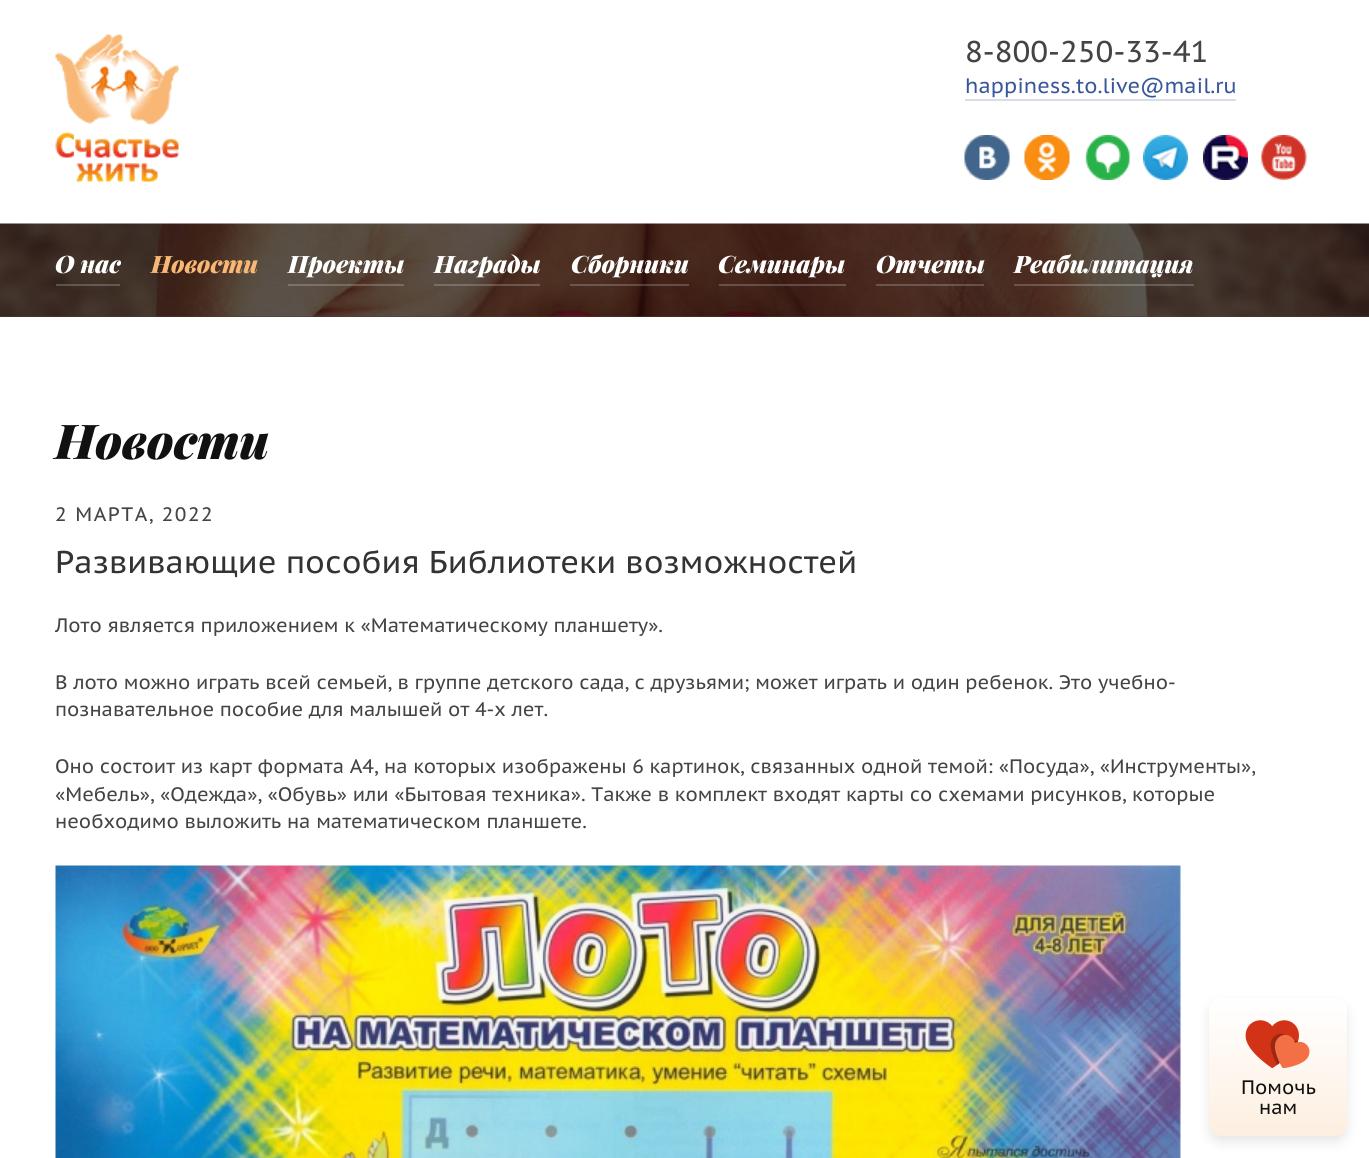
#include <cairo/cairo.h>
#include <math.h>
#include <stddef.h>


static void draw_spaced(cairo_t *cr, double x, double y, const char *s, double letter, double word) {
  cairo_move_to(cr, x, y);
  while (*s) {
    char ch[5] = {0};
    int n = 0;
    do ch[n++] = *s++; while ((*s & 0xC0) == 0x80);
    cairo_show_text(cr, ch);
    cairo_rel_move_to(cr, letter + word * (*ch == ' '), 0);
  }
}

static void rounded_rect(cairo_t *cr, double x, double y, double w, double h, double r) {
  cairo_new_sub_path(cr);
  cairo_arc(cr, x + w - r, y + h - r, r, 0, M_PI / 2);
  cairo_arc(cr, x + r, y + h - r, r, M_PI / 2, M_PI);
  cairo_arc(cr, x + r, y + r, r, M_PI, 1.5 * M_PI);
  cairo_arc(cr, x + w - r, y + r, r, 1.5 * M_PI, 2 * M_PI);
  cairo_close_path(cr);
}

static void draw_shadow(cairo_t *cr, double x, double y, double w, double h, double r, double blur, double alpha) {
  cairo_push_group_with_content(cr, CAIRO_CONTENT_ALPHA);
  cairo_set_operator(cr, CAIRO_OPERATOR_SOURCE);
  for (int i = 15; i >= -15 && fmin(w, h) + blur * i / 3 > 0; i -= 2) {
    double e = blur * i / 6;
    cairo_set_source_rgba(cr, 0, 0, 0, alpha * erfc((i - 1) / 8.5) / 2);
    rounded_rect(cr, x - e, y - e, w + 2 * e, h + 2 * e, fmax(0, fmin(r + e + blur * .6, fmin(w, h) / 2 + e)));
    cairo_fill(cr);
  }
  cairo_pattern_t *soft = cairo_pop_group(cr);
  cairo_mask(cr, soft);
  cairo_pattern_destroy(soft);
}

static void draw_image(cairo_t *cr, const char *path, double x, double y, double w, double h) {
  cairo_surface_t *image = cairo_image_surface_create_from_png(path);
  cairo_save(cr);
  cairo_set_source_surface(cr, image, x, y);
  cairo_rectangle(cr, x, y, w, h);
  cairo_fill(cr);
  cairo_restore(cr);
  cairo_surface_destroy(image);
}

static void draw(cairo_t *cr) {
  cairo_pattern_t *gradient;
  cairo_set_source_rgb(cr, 1, 1, 1);
  cairo_paint(cr);
  draw_image(cr, "images/1.png", 55, 34, 124, 148);
  cairo_set_source_rgb(cr, 217 / 255.0, 221 / 255.0, 232 / 255.0);
  cairo_rectangle(cr, 965, 99, 271, 2);
  cairo_fill(cr);
  draw_image(cr, "images/2.png", 964, 135, 46, 45);
  draw_image(cr, "images/3.png", 1024, 135, 46, 45);
  draw_image(cr, "images/4.png", 1085, 135, 45, 45);
  draw_image(cr, "images/5.png", 1143, 135, 45, 45);
  draw_image(cr, "images/6.png", 1203, 135, 45, 45);
  draw_image(cr, "images/7.png", 1261, 135, 46, 45);
  cairo_set_source_rgb(cr, 81 / 255.0, 61 / 255.0, 48 / 255.0);
  cairo_rectangle(cr, 0, 316, 1369, 1);
  cairo_fill(cr);
  draw_image(cr, "images/8.png", 0, 223, 1369, 94);
  cairo_set_source_rgba(cr, 1, 1, 1, 0.2);
  cairo_rectangle(cr, 56, 284, 64, 2);
  cairo_fill(cr);
  cairo_rectangle(cr, 288, 284, 116, 2);
  cairo_fill(cr);
  cairo_rectangle(cr, 434, 284, 106, 2);
  cairo_fill(cr);
  cairo_rectangle(cr, 570, 284, 119, 2);
  cairo_fill(cr);
  cairo_rectangle(cr, 719, 284, 127, 2);
  cairo_fill(cr);
  cairo_rectangle(cr, 876, 284, 108, 2);
  cairo_fill(cr);
  cairo_rectangle(cr, 1014, 284, 180, 2);
  cairo_fill(cr);
  draw_image(cr, "images/9.png", 55, 865, 1126, 293);
  cairo_set_source_rgb(cr, 0, 0, 0);
  draw_shadow(cr, 1209, 1004, 138, 138, 12, 6, 0.1);
  gradient = cairo_pattern_create_linear(1278, 998, 1278, 1136);
  cairo_pattern_add_color_stop_rgba(gradient, 0, 1, 1, 1, 1);
  cairo_pattern_add_color_stop_rgba(gradient, 1, 253 / 255.0, 239 / 255.0, 224 / 255.0, 1);
  cairo_set_source(cr, gradient);
  cairo_pattern_destroy(gradient);
  rounded_rect(cr, 1209, 998, 138, 138, 12);
  cairo_fill(cr);
  draw_image(cr, "images/10.png", 1245, 1020, 65, 48);
  cairo_select_font_face(cr, "PT Sans Caption", CAIRO_FONT_SLANT_NORMAL, CAIRO_FONT_WEIGHT_NORMAL);
  cairo_set_font_size(cr, 30);
  cairo_set_source_rgb(cr, 68 / 255.0, 68 / 255.0, 68 / 255.0);
  cairo_move_to(cr, 965, 62);
  cairo_show_text(cr, "8-800-250-33-41");
  cairo_set_font_size(cr, 21);
  cairo_set_source_rgb(cr, 56 / 255.0, 86 / 255.0, 154 / 255.0);
  cairo_move_to(cr, 965, 93);
  cairo_show_text(cr, "happiness.to.live@mail.ru");
  cairo_select_font_face(cr, "Playfair Display Black", CAIRO_FONT_SLANT_ITALIC, CAIRO_FONT_WEIGHT_NORMAL);
  cairo_set_font_size(cr, 24);
  cairo_set_source_rgb(cr, 1, 1, 1);
  cairo_move_to(cr, 55, 273);
  cairo_show_text(cr, "О нас");
  cairo_set_source_rgb(cr, 248 / 255.0, 183 / 255.0, 116 / 255.0);
  cairo_move_to(cr, 151, 273);
  cairo_show_text(cr, "Новости");
  cairo_set_source_rgb(cr, 1, 1, 1);
  cairo_move_to(cr, 288, 273);
  cairo_show_text(cr, "Проекты");
  cairo_move_to(cr, 434, 273);
  cairo_show_text(cr, "Награды");
  cairo_move_to(cr, 571, 273);
  cairo_show_text(cr, "Сборники");
  cairo_move_to(cr, 718, 273);
  cairo_show_text(cr, "Семинары");
  cairo_move_to(cr, 876, 273);
  cairo_show_text(cr, "Отчеты");
  cairo_move_to(cr, 1014, 273);
  cairo_show_text(cr, "Реабилитация");
  cairo_set_font_size(cr, 48);
  cairo_set_source_rgb(cr, 17 / 255.0, 17 / 255.0, 17 / 255.0);
  cairo_move_to(cr, 55, 459);
  cairo_show_text(cr, "Новости");
  cairo_select_font_face(cr, "PT Sans Caption", CAIRO_FONT_SLANT_NORMAL, CAIRO_FONT_WEIGHT_NORMAL);
  cairo_set_font_size(cr, 19.5);
  cairo_set_source_rgb(cr, 68 / 255.0, 68 / 255.0, 68 / 255.0);
  draw_spaced(cr, 55, 521, "2 МАРТА, 2022", 1.5, 0);
  cairo_set_font_size(cr, 31.5);
  cairo_set_source_rgb(cr, 51 / 255.0, 51 / 255.0, 51 / 255.0);
  cairo_move_to(cr, 55, 573);
  cairo_show_text(cr, "Развивающие пособия Библиотеки возможностей");
  cairo_set_font_size(cr, 19.5);
  cairo_set_source_rgb(cr, 68 / 255.0, 68 / 255.0, 68 / 255.0);
  cairo_move_to(cr, 55, 632);
  cairo_show_text(cr, "Лото является приложением к «Математическому планшету».");
  cairo_move_to(cr, 55, 689);
  cairo_show_text(cr, "В лото можно играть всей семьей, в группе детского сада, с друзьями; может играть и один ребенок. Это учебно-");
  cairo_move_to(cr, 55, 716);
  cairo_show_text(cr, "познавательное пособие для малышей от 4-х лет.");
  cairo_move_to(cr, 55, 773);
  cairo_show_text(cr, "Оно состоит из карт формата А4, на которых изображены 6 картинок, связанных одной темой: «Посуда», «Инструменты»,");
  cairo_move_to(cr, 55, 801);
  cairo_show_text(cr, "«Мебель», «Одежда», «Обувь» или «Бытовая техника». Также в комплект входят карты со схемами рисунков, которые");
  cairo_move_to(cr, 55, 828);
  cairo_show_text(cr, "необходимо выложить на математическом планшете.");
  cairo_set_source_rgb(cr, 17 / 255.0, 17 / 255.0, 17 / 255.0);
  cairo_move_to(cr, 1241, 1094);
  cairo_show_text(cr, "Помочь");
  cairo_move_to(cr, 1259, 1114);
  cairo_show_text(cr, "нам");
}

int main(void) {
  cairo_surface_t *surface = cairo_image_surface_create(CAIRO_FORMAT_RGB24, 1369, 1158);
  cairo_t *cr = cairo_create(surface);
  cairo_font_options_t *options = cairo_font_options_create();
  cairo_font_options_set_hint_metrics(options, CAIRO_HINT_METRICS_OFF);
  cairo_font_options_set_hint_style(options, CAIRO_HINT_STYLE_NONE);
  cairo_set_font_options(cr, options);
  cairo_set_miter_limit(cr, 4);
  draw(cr);
  cairo_surface_write_to_png(surface, "out.png");
  cairo_font_options_destroy(options);
  cairo_destroy(cr);
  cairo_surface_destroy(surface);
  return 0;
}
